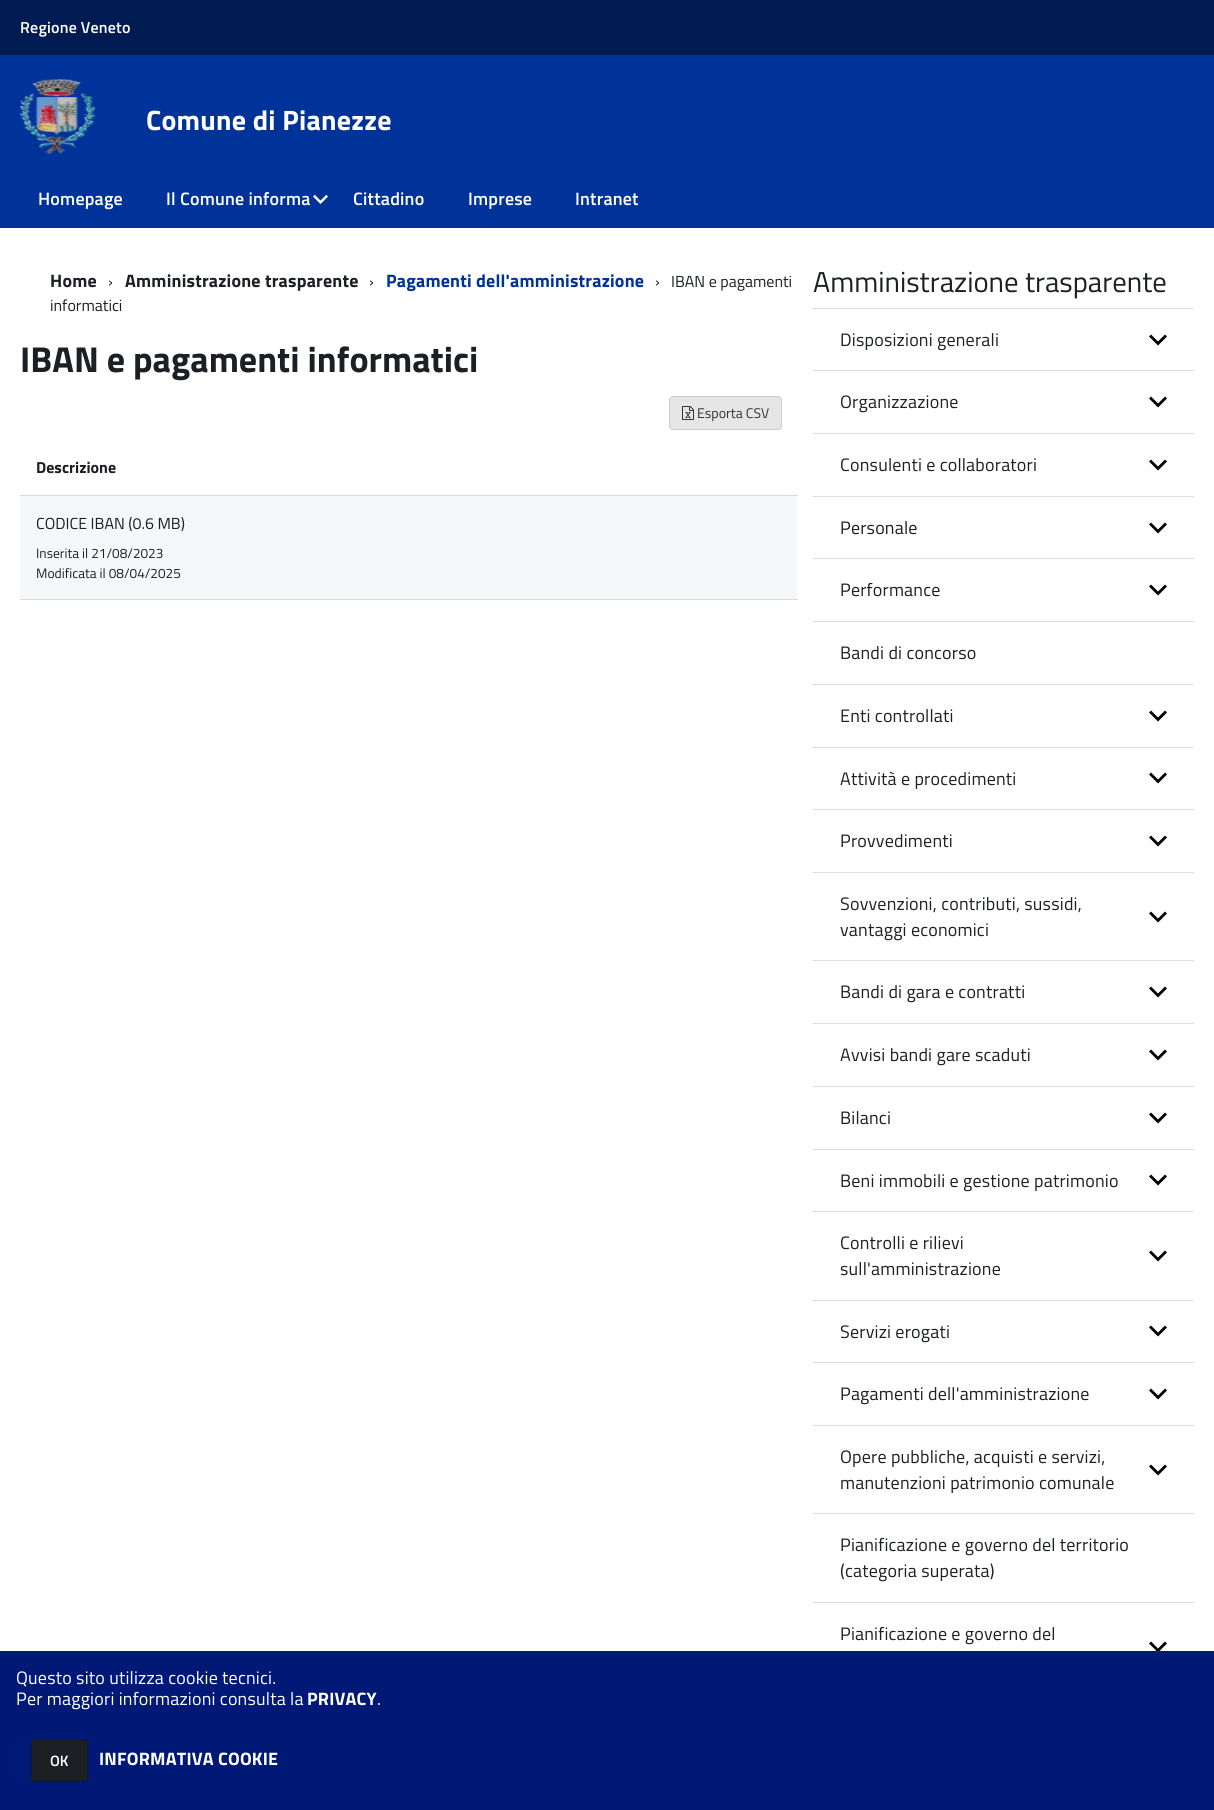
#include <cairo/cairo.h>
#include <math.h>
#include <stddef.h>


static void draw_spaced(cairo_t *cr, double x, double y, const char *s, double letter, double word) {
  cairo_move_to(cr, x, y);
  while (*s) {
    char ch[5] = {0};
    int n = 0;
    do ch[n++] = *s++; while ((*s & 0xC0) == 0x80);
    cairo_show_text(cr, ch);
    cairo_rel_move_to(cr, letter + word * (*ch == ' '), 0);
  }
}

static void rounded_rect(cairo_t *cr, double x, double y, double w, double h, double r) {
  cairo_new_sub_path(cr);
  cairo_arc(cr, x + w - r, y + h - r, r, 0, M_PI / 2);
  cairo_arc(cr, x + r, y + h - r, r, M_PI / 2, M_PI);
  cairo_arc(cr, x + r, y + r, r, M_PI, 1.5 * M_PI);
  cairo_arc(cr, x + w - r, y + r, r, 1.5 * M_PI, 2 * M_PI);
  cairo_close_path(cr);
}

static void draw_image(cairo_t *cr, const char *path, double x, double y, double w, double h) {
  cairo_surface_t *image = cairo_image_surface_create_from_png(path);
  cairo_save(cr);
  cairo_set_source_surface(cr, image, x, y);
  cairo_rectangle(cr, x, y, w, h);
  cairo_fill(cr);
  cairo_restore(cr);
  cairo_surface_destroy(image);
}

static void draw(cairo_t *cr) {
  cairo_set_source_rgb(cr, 1, 1, 1);
  cairo_paint(cr);
  cairo_set_source_rgb(cr, 0, 27 / 255.0, 82 / 255.0);
  cairo_rectangle(cr, 0, 0, 1214, 55);
  cairo_fill(cr);
  cairo_set_source_rgb(cr, 0, 51 / 255.0, 153 / 255.0);
  cairo_rectangle(cr, 0, 55, 1214, 173);
  cairo_fill(cr);
  draw_image(cr, "images/1.png", 20, 79, 75, 75);
  cairo_set_source_rgb(cr, 230 / 255.0, 230 / 255.0, 230 / 255.0);
  rounded_rect(cr, 669.5, 396.5, 112, 33, 3.5);
  cairo_fill_preserve(cr);
  cairo_set_source_rgb(cr, 204 / 255.0, 204 / 255.0, 204 / 255.0);
  cairo_set_line_width(cr, 1);
  cairo_stroke(cr);
  draw_image(cr, "images/2.png", 682, 406, 12, 14);
  cairo_set_source_rgb(cr, 214 / 255.0, 220 / 255.0, 227 / 255.0);
  cairo_rectangle(cr, 20, 495, 778, 1);
  cairo_fill(cr);
  cairo_set_source_rgb(cr, 246 / 255.0, 247 / 255.0, 249 / 255.0);
  cairo_rectangle(cr, 20, 496, 777, 103);
  cairo_fill(cr);
  cairo_set_source_rgb(cr, 214 / 255.0, 220 / 255.0, 227 / 255.0);
  cairo_rectangle(cr, 20, 599, 778, 1);
  cairo_fill(cr);
  cairo_set_source_rgb(cr, 221 / 255.0, 221 / 255.0, 221 / 255.0);
  cairo_rectangle(cr, 813, 308, 381, 1);
  cairo_fill(cr);
  cairo_set_source_rgb(cr, 0, 0, 0);
  cairo_new_path(cr);
  cairo_move_to(cr, 1151, 334.5);
  cairo_line_to(cr, 1149, 336.5);
  cairo_line_to(cr, 1158, 345.5);
  cairo_line_to(cr, 1167, 336.5);
  cairo_line_to(cr, 1165, 334.5);
  cairo_line_to(cr, 1158, 341.5);
  cairo_close_path(cr);
  cairo_fill(cr);
  cairo_set_source_rgb(cr, 221 / 255.0, 221 / 255.0, 221 / 255.0);
  cairo_rectangle(cr, 813, 370, 381, 1);
  cairo_fill(cr);
  cairo_set_source_rgb(cr, 0, 0, 0);
  cairo_new_path(cr);
  cairo_move_to(cr, 1151, 396.5);
  cairo_line_to(cr, 1149, 398.5);
  cairo_line_to(cr, 1158, 407.5);
  cairo_line_to(cr, 1167, 398.5);
  cairo_line_to(cr, 1165, 396.5);
  cairo_line_to(cr, 1158, 403.5);
  cairo_close_path(cr);
  cairo_fill(cr);
  cairo_set_source_rgb(cr, 221 / 255.0, 221 / 255.0, 221 / 255.0);
  cairo_rectangle(cr, 813, 433, 381, 1);
  cairo_fill(cr);
  cairo_set_source_rgb(cr, 0, 0, 0);
  cairo_new_path(cr);
  cairo_move_to(cr, 1151, 459.5);
  cairo_line_to(cr, 1149, 461.5);
  cairo_line_to(cr, 1158, 470.5);
  cairo_line_to(cr, 1167, 461.5);
  cairo_line_to(cr, 1165, 459.5);
  cairo_line_to(cr, 1158, 466.5);
  cairo_close_path(cr);
  cairo_fill(cr);
  cairo_set_source_rgb(cr, 221 / 255.0, 221 / 255.0, 221 / 255.0);
  cairo_rectangle(cr, 813, 496, 381, 1);
  cairo_fill(cr);
  cairo_set_source_rgb(cr, 0, 0, 0);
  cairo_new_path(cr);
  cairo_move_to(cr, 1151, 522.5);
  cairo_line_to(cr, 1149, 524.5);
  cairo_line_to(cr, 1158, 533.5);
  cairo_line_to(cr, 1167, 524.5);
  cairo_line_to(cr, 1165, 522.5);
  cairo_line_to(cr, 1158, 529.5);
  cairo_close_path(cr);
  cairo_fill(cr);
  cairo_set_source_rgb(cr, 221 / 255.0, 221 / 255.0, 221 / 255.0);
  cairo_rectangle(cr, 813, 558, 381, 1);
  cairo_fill(cr);
  cairo_set_source_rgb(cr, 0, 0, 0);
  cairo_new_path(cr);
  cairo_move_to(cr, 1151, 584.5);
  cairo_line_to(cr, 1149, 586.5);
  cairo_line_to(cr, 1158, 595.5);
  cairo_line_to(cr, 1167, 586.5);
  cairo_line_to(cr, 1165, 584.5);
  cairo_line_to(cr, 1158, 591.5);
  cairo_close_path(cr);
  cairo_fill(cr);
  cairo_set_source_rgb(cr, 221 / 255.0, 221 / 255.0, 221 / 255.0);
  cairo_rectangle(cr, 813, 621, 381, 1);
  cairo_fill(cr);
  cairo_rectangle(cr, 813, 684, 381, 1);
  cairo_fill(cr);
  cairo_set_source_rgb(cr, 0, 0, 0);
  cairo_new_path(cr);
  cairo_move_to(cr, 1151, 710.5);
  cairo_line_to(cr, 1149, 712.5);
  cairo_line_to(cr, 1158, 721.5);
  cairo_line_to(cr, 1167, 712.5);
  cairo_line_to(cr, 1165, 710.5);
  cairo_line_to(cr, 1158, 717.5);
  cairo_close_path(cr);
  cairo_fill(cr);
  cairo_set_source_rgb(cr, 221 / 255.0, 221 / 255.0, 221 / 255.0);
  cairo_rectangle(cr, 813, 747, 381, 1);
  cairo_fill(cr);
  cairo_set_source_rgb(cr, 0, 0, 0);
  cairo_new_path(cr);
  cairo_move_to(cr, 1151, 772.5);
  cairo_line_to(cr, 1149, 774.5);
  cairo_line_to(cr, 1158, 783.5);
  cairo_line_to(cr, 1167, 774.5);
  cairo_line_to(cr, 1165, 772.5);
  cairo_line_to(cr, 1158, 779.5);
  cairo_close_path(cr);
  cairo_fill(cr);
  cairo_set_source_rgb(cr, 221 / 255.0, 221 / 255.0, 221 / 255.0);
  cairo_rectangle(cr, 813, 809, 381, 1);
  cairo_fill(cr);
  cairo_set_source_rgb(cr, 0, 0, 0);
  cairo_new_path(cr);
  cairo_move_to(cr, 1151, 835.5);
  cairo_line_to(cr, 1149, 837.5);
  cairo_line_to(cr, 1158, 846.5);
  cairo_line_to(cr, 1167, 837.5);
  cairo_line_to(cr, 1165, 835.5);
  cairo_line_to(cr, 1158, 842.5);
  cairo_close_path(cr);
  cairo_fill(cr);
  cairo_set_source_rgb(cr, 221 / 255.0, 221 / 255.0, 221 / 255.0);
  cairo_rectangle(cr, 813, 872, 381, 1);
  cairo_fill(cr);
  cairo_set_source_rgb(cr, 0, 0, 0);
  cairo_new_path(cr);
  cairo_move_to(cr, 1151, 911.5);
  cairo_line_to(cr, 1149, 913.5);
  cairo_line_to(cr, 1158, 922.5);
  cairo_line_to(cr, 1167, 913.5);
  cairo_line_to(cr, 1165, 911.5);
  cairo_line_to(cr, 1158, 918.5);
  cairo_close_path(cr);
  cairo_fill(cr);
  cairo_set_source_rgb(cr, 221 / 255.0, 221 / 255.0, 221 / 255.0);
  cairo_rectangle(cr, 813, 960, 381, 1);
  cairo_fill(cr);
  cairo_set_source_rgb(cr, 0, 0, 0);
  cairo_new_path(cr);
  cairo_move_to(cr, 1151, 986.5);
  cairo_line_to(cr, 1149, 988.5);
  cairo_line_to(cr, 1158, 997.5);
  cairo_line_to(cr, 1167, 988.5);
  cairo_line_to(cr, 1165, 986.5);
  cairo_line_to(cr, 1158, 993.5);
  cairo_close_path(cr);
  cairo_fill(cr);
  cairo_set_source_rgb(cr, 221 / 255.0, 221 / 255.0, 221 / 255.0);
  cairo_rectangle(cr, 813, 1023, 381, 1);
  cairo_fill(cr);
  cairo_set_source_rgb(cr, 0, 0, 0);
  cairo_new_path(cr);
  cairo_move_to(cr, 1151, 1049.5);
  cairo_line_to(cr, 1149, 1051.5);
  cairo_line_to(cr, 1158, 1060.5);
  cairo_line_to(cr, 1167, 1051.5);
  cairo_line_to(cr, 1165, 1049.5);
  cairo_line_to(cr, 1158, 1056.5);
  cairo_close_path(cr);
  cairo_fill(cr);
  cairo_set_source_rgb(cr, 221 / 255.0, 221 / 255.0, 221 / 255.0);
  cairo_rectangle(cr, 813, 1086, 381, 1);
  cairo_fill(cr);
  cairo_set_source_rgb(cr, 0, 0, 0);
  cairo_new_path(cr);
  cairo_move_to(cr, 1151, 1112.5);
  cairo_line_to(cr, 1149, 1114.5);
  cairo_line_to(cr, 1158, 1123.5);
  cairo_line_to(cr, 1167, 1114.5);
  cairo_line_to(cr, 1165, 1112.5);
  cairo_line_to(cr, 1158, 1119.5);
  cairo_close_path(cr);
  cairo_fill(cr);
  cairo_set_source_rgb(cr, 221 / 255.0, 221 / 255.0, 221 / 255.0);
  cairo_rectangle(cr, 813, 1149, 381, 1);
  cairo_fill(cr);
  cairo_set_source_rgb(cr, 0, 0, 0);
  cairo_new_path(cr);
  cairo_move_to(cr, 1151, 1174.5);
  cairo_line_to(cr, 1149, 1176.5);
  cairo_line_to(cr, 1158, 1185.5);
  cairo_line_to(cr, 1167, 1176.5);
  cairo_line_to(cr, 1165, 1174.5);
  cairo_line_to(cr, 1158, 1181.5);
  cairo_close_path(cr);
  cairo_fill(cr);
  cairo_set_source_rgb(cr, 221 / 255.0, 221 / 255.0, 221 / 255.0);
  cairo_rectangle(cr, 813, 1211, 381, 1);
  cairo_fill(cr);
  cairo_set_source_rgb(cr, 0, 0, 0);
  cairo_new_path(cr);
  cairo_move_to(cr, 1151, 1250.5);
  cairo_line_to(cr, 1149, 1252.5);
  cairo_line_to(cr, 1158, 1261.5);
  cairo_line_to(cr, 1167, 1252.5);
  cairo_line_to(cr, 1165, 1250.5);
  cairo_line_to(cr, 1158, 1257.5);
  cairo_close_path(cr);
  cairo_fill(cr);
  cairo_set_source_rgb(cr, 221 / 255.0, 221 / 255.0, 221 / 255.0);
  cairo_rectangle(cr, 813, 1300, 381, 1);
  cairo_fill(cr);
  cairo_set_source_rgb(cr, 0, 0, 0);
  cairo_new_path(cr);
  cairo_move_to(cr, 1151, 1325.5);
  cairo_line_to(cr, 1149, 1327.5);
  cairo_line_to(cr, 1158, 1336.5);
  cairo_line_to(cr, 1167, 1327.5);
  cairo_line_to(cr, 1165, 1325.5);
  cairo_line_to(cr, 1158, 1332.5);
  cairo_close_path(cr);
  cairo_fill(cr);
  cairo_set_source_rgb(cr, 221 / 255.0, 221 / 255.0, 221 / 255.0);
  cairo_rectangle(cr, 813, 1362, 381, 1);
  cairo_fill(cr);
  cairo_set_source_rgb(cr, 0, 0, 0);
  cairo_new_path(cr);
  cairo_move_to(cr, 1151, 1388.5);
  cairo_line_to(cr, 1149, 1390.5);
  cairo_line_to(cr, 1158, 1399.5);
  cairo_line_to(cr, 1167, 1390.5);
  cairo_line_to(cr, 1165, 1388.5);
  cairo_line_to(cr, 1158, 1395.5);
  cairo_close_path(cr);
  cairo_fill(cr);
  cairo_set_source_rgb(cr, 221 / 255.0, 221 / 255.0, 221 / 255.0);
  cairo_rectangle(cr, 813, 1425, 381, 1);
  cairo_fill(cr);
  cairo_set_source_rgb(cr, 0, 0, 0);
  cairo_new_path(cr);
  cairo_move_to(cr, 1151, 1464.5);
  cairo_line_to(cr, 1149, 1466.5);
  cairo_line_to(cr, 1158, 1475.5);
  cairo_line_to(cr, 1167, 1466.5);
  cairo_line_to(cr, 1165, 1464.5);
  cairo_line_to(cr, 1158, 1471.5);
  cairo_close_path(cr);
  cairo_fill(cr);
  cairo_set_source_rgb(cr, 221 / 255.0, 221 / 255.0, 221 / 255.0);
  cairo_rectangle(cr, 813, 1513, 381, 1);
  cairo_fill(cr);
  cairo_rectangle(cr, 813, 1602, 381, 1);
  cairo_fill(cr);
  cairo_set_source_rgb(cr, 0, 0, 0);
  cairo_new_path(cr);
  cairo_move_to(cr, 1151, 1641.5);
  cairo_line_to(cr, 1149, 1643.5);
  cairo_line_to(cr, 1158, 1652.5);
  cairo_line_to(cr, 1167, 1643.5);
  cairo_line_to(cr, 1165, 1641.5);
  cairo_line_to(cr, 1158, 1648.5);
  cairo_close_path(cr);
  cairo_fill(cr);
  cairo_set_source_rgb(cr, 0, 25 / 255.0, 119 / 255.0);
  cairo_rectangle(cr, 0, 1651, 1214, 159);
  cairo_fill(cr);
  cairo_set_source_rgb(cr, 28 / 255.0, 32 / 255.0, 36 / 255.0);
  cairo_rectangle(cr, 31.5, 1740.5, 56, 40);
  cairo_fill_preserve(cr);
  cairo_set_source_rgb(cr, 23 / 255.0, 27 / 255.0, 31 / 255.0);
  cairo_stroke(cr);
  cairo_select_font_face(cr, "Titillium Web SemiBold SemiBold", CAIRO_FONT_SLANT_NORMAL, CAIRO_FONT_WEIGHT_NORMAL);
  cairo_set_font_size(cr, 16);
  cairo_set_source_rgb(cr, 1, 1, 1);
  draw_spaced(cr, 20, 33, "Regione Veneto", 0.2, 0);
  cairo_select_font_face(cr, "Titillium Web", CAIRO_FONT_SLANT_NORMAL, CAIRO_FONT_WEIGHT_BOLD);
  cairo_set_font_size(cr, 28);
  draw_spaced(cr, 146, 130, "Comune di Pianezze", 0.25, 0);
  cairo_select_font_face(cr, "Titillium Web SemiBold SemiBold", CAIRO_FONT_SLANT_NORMAL, CAIRO_FONT_WEIGHT_NORMAL);
  cairo_set_font_size(cr, 18);
  draw_spaced(cr, 38, 205, "Homepage", 0.2, 0);
  draw_spaced(cr, 166, 205, "Il Comune informa", 0.2, 0);
  cairo_select_font_face(cr, "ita", CAIRO_FONT_SLANT_NORMAL, CAIRO_FONT_WEIGHT_NORMAL);
  cairo_set_font_size(cr, 15);
  draw_spaced(cr, 313, 206, "⏶", 0.2, 0);
  cairo_select_font_face(cr, "Titillium Web SemiBold SemiBold", CAIRO_FONT_SLANT_NORMAL, CAIRO_FONT_WEIGHT_NORMAL);
  cairo_set_font_size(cr, 18);
  draw_spaced(cr, 353, 205, "Cittadino", 0.2, 0);
  draw_spaced(cr, 468, 205, "Imprese", 0.2, 0);
  draw_spaced(cr, 575, 205, "Intranet", 0.2, 0);
  cairo_select_font_face(cr, "Titillium Web", CAIRO_FONT_SLANT_NORMAL, CAIRO_FONT_WEIGHT_BOLD);
  cairo_set_source_rgb(cr, 28 / 255.0, 32 / 255.0, 36 / 255.0);
  draw_spaced(cr, 50, 287, "Home", 0.2, 0);
  cairo_select_font_face(cr, "Titillium Web", CAIRO_FONT_SLANT_NORMAL, CAIRO_FONT_WEIGHT_NORMAL);
  cairo_set_font_size(cr, 16);
  cairo_move_to(cr, 108, 287);
  cairo_show_text(cr, "›");
  cairo_select_font_face(cr, "Titillium Web", CAIRO_FONT_SLANT_NORMAL, CAIRO_FONT_WEIGHT_BOLD);
  cairo_set_font_size(cr, 18);
  draw_spaced(cr, 125, 287, "Amministrazione trasparente", 0.2, 0);
  cairo_select_font_face(cr, "Titillium Web", CAIRO_FONT_SLANT_NORMAL, CAIRO_FONT_WEIGHT_NORMAL);
  cairo_set_font_size(cr, 16);
  cairo_move_to(cr, 369, 287);
  cairo_show_text(cr, "›");
  cairo_select_font_face(cr, "Titillium Web", CAIRO_FONT_SLANT_NORMAL, CAIRO_FONT_WEIGHT_BOLD);
  cairo_set_font_size(cr, 18);
  cairo_set_source_rgb(cr, 0, 51 / 255.0, 153 / 255.0);
  draw_spaced(cr, 386, 287, "Pagamenti dell'amministrazione", 0.2, 0);
  cairo_select_font_face(cr, "Titillium Web", CAIRO_FONT_SLANT_NORMAL, CAIRO_FONT_WEIGHT_NORMAL);
  cairo_set_font_size(cr, 16);
  cairo_set_source_rgb(cr, 28 / 255.0, 32 / 255.0, 36 / 255.0);
  cairo_move_to(cr, 655, 287);
  cairo_show_text(cr, "›");
  cairo_move_to(cr, 671, 287);
  cairo_show_text(cr, "IBAN e pagamenti");
  cairo_move_to(cr, 50, 311);
  cairo_show_text(cr, "informatici");
  cairo_select_font_face(cr, "Titillium Web", CAIRO_FONT_SLANT_NORMAL, CAIRO_FONT_WEIGHT_BOLD);
  cairo_set_font_size(cr, 36);
  cairo_move_to(cr, 20, 372);
  cairo_show_text(cr, "IBAN e pagamenti informatici");
  cairo_select_font_face(cr, "Titillium Web", CAIRO_FONT_SLANT_NORMAL, CAIRO_FONT_WEIGHT_NORMAL);
  cairo_set_font_size(cr, 14);
  cairo_set_source_rgb(cr, 51 / 255.0, 51 / 255.0, 51 / 255.0);
  cairo_move_to(cr, 697, 418);
  cairo_show_text(cr, "Esporta CSV");
  cairo_select_font_face(cr, "Titillium Web", CAIRO_FONT_SLANT_NORMAL, CAIRO_FONT_WEIGHT_BOLD);
  cairo_set_font_size(cr, 16);
  cairo_set_source_rgb(cr, 28 / 255.0, 32 / 255.0, 36 / 255.0);
  cairo_move_to(cr, 36, 473);
  cairo_show_text(cr, "Descrizione");
  cairo_select_font_face(cr, "Titillium Web", CAIRO_FONT_SLANT_NORMAL, CAIRO_FONT_WEIGHT_NORMAL);
  cairo_move_to(cr, 36, 529);
  cairo_show_text(cr, "CODICE IBAN (0.6 MB)");
  cairo_set_font_size(cr, 13.6);
  cairo_move_to(cr, 36, 558);
  cairo_show_text(cr, "Inserita il 21/08/2023");
  cairo_move_to(cr, 36, 578);
  cairo_show_text(cr, "Modificata il 08/04/2025");
  cairo_set_font_size(cr, 28.75);
  cairo_move_to(cr, 813, 292);
  cairo_show_text(cr, "Amministrazione trasparente");
  cairo_set_font_size(cr, 18);
  draw_spaced(cr, 840, 346, "Disposizioni generali", 0.2, 0);
  draw_spaced(cr, 840, 408, "Organizzazione", 0.2, 0);
  draw_spaced(cr, 840, 471, "Consulenti e collaboratori", 0.2, 0);
  draw_spaced(cr, 840, 534, "Personale", 0.2, 0);
  draw_spaced(cr, 840, 596, "Performance", 0.2, 0);
  draw_spaced(cr, 840, 659, "Bandi di concorso", 0.2, 0);
  draw_spaced(cr, 840, 722, "Enti controllati", 0.2, 0);
  draw_spaced(cr, 840, 785, "Attività e procedimenti", 0.2, 0);
  draw_spaced(cr, 840, 847, "Provvedimenti", 0.2, 0);
  draw_spaced(cr, 840, 910, "Sovvenzioni, contributi, sussidi,", 0.2, 0);
  draw_spaced(cr, 840, 936, "vantaggi economici", 0.2, 0);
  draw_spaced(cr, 840, 998, "Bandi di gara e contratti", 0.2, 0);
  draw_spaced(cr, 840, 1061, "Avvisi bandi gare scaduti", 0.2, 0);
  draw_spaced(cr, 840, 1124, "Bilanci", 0.2, 0);
  draw_spaced(cr, 840, 1187, "Beni immobili e gestione patrimonio", 0.2, 0);
  draw_spaced(cr, 840, 1249, "Controlli e rilievi", 0.2, 0);
  draw_spaced(cr, 840, 1275, "sull'amministrazione", 0.2, 0);
  draw_spaced(cr, 840, 1338, "Servizi erogati", 0.2, 0);
  draw_spaced(cr, 840, 1400, "Pagamenti dell'amministrazione", 0.2, 0);
  draw_spaced(cr, 840, 1463, "Opere pubbliche, acquisti e servizi,", 0.2, 0);
  draw_spaced(cr, 840, 1489, "manutenzioni patrimonio comunale", 0.2, 0);
  draw_spaced(cr, 840, 1551, "Pianificazione e governo del territorio", 0.2, 0);
  draw_spaced(cr, 840, 1577, "(categoria superata)", 0.2, 0);
  draw_spaced(cr, 840, 1640, "Pianificazione e governo del", 0.2, 0);
  cairo_set_source_rgb(cr, 1, 1, 1);
  draw_spaced(cr, 16, 1684, "Questo sito utilizza cookie tecnici.", 0.2, 0);
  draw_spaced(cr, 16, 1705, "Per maggiori informazioni consulta la", 0.2, 0);
  cairo_select_font_face(cr, "Titillium Web", CAIRO_FONT_SLANT_NORMAL, CAIRO_FONT_WEIGHT_BOLD);
  draw_spaced(cr, 307, 1705, "PRIVACY", 0.2, 0);
  cairo_select_font_face(cr, "Titillium Web", CAIRO_FONT_SLANT_NORMAL, CAIRO_FONT_WEIGHT_NORMAL);
  draw_spaced(cr, 377, 1705, ".", 0.2, 0);
  cairo_select_font_face(cr, "Titillium Web SemiBold SemiBold", CAIRO_FONT_SLANT_NORMAL, CAIRO_FONT_WEIGHT_NORMAL);
  cairo_set_font_size(cr, 15);
  cairo_move_to(cr, 50, 1766);
  cairo_show_text(cr, "OK");
  cairo_select_font_face(cr, "Titillium Web", CAIRO_FONT_SLANT_NORMAL, CAIRO_FONT_WEIGHT_BOLD);
  cairo_set_font_size(cr, 18);
  draw_spaced(cr, 99, 1765, "INFORMATIVA COOKIE", 0.2, 0);
}

int main(void) {
  cairo_surface_t *surface = cairo_image_surface_create(CAIRO_FORMAT_RGB24, 1214, 1810);
  cairo_t *cr = cairo_create(surface);
  cairo_font_options_t *options = cairo_font_options_create();
  cairo_font_options_set_hint_metrics(options, CAIRO_HINT_METRICS_OFF);
  cairo_font_options_set_hint_style(options, CAIRO_HINT_STYLE_NONE);
  cairo_set_font_options(cr, options);
  cairo_set_miter_limit(cr, 4);
  draw(cr);
  cairo_surface_write_to_png(surface, "out.png");
  cairo_font_options_destroy(options);
  cairo_destroy(cr);
  cairo_surface_destroy(surface);
  return 0;
}
